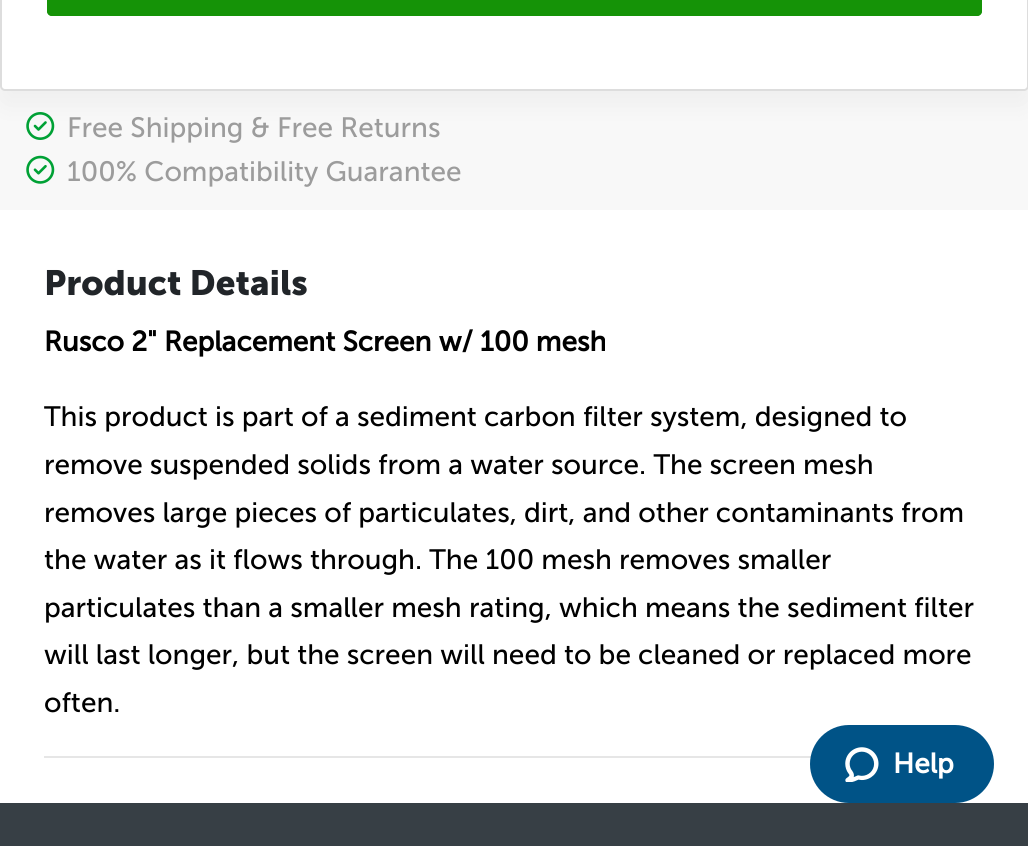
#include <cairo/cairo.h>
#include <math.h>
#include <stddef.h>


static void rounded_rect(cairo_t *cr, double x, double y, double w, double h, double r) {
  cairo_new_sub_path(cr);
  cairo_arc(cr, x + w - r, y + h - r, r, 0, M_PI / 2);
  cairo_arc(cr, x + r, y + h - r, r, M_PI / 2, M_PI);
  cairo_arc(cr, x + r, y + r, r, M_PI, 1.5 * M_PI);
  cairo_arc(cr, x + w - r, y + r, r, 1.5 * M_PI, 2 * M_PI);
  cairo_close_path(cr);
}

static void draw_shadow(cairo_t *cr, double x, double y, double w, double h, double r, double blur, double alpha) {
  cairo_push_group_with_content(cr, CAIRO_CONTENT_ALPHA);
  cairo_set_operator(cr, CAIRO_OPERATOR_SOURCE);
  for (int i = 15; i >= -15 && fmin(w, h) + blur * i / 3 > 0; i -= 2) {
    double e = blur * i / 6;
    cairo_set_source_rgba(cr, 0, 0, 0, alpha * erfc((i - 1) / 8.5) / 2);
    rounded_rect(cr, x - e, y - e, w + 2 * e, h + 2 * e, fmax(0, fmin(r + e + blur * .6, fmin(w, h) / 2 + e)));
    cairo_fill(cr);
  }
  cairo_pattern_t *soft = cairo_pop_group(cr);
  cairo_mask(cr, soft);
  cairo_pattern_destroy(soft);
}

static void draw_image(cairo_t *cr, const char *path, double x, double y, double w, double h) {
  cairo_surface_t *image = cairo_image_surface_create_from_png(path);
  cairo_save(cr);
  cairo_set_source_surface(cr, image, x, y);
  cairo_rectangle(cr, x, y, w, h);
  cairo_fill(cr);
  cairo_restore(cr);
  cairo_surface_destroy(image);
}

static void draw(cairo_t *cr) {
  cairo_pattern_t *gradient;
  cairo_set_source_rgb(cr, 1, 1, 1);
  cairo_paint(cr);
  cairo_set_source_rgb(cr, 248 / 255.0, 248 / 255.0, 248 / 255.0);
  cairo_rectangle(cr, 0, 86, 1028, 124);
  cairo_fill(cr);
  draw_image(cr, "images/1.png", 26, 112, 29, 28);
  cairo_set_source_rgb(cr, 0, 0, 0);
  draw_shadow(cr, 0, -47, 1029, 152, 5, 14, 0.04);
  cairo_set_source_rgb(cr, 1, 1, 1);
  rounded_rect(cr, 1, -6, 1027, 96, 4);
  cairo_fill_preserve(cr);
  cairo_set_source_rgb(cr, 221 / 255.0, 221 / 255.0, 221 / 255.0);
  cairo_stroke(cr);
  gradient = cairo_pattern_create_linear(515, -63, 515, 16);
  cairo_pattern_add_color_stop_rgba(gradient, 0, 23 / 255.0, 162 / 255.0, 8 / 255.0, 1);
  cairo_pattern_add_color_stop_rgba(gradient, 0.5, 23 / 255.0, 162 / 255.0, 8 / 255.0, 1);
  cairo_pattern_add_color_stop_rgba(gradient, 0.71, 21 / 255.0, 147 / 255.0, 7 / 255.0, 1);
  cairo_pattern_add_color_stop_rgba(gradient, 1, 21 / 255.0, 147 / 255.0, 7 / 255.0, 1);
  cairo_set_source(cr, gradient);
  cairo_pattern_destroy(gradient);
  rounded_rect(cr, 47, -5, 935, 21, 5);
  cairo_fill(cr);
  rounded_rect(cr, 49, -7, 931, 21, 3);
  cairo_set_source_rgb(cr, 21 / 255.0, 147 / 255.0, 7 / 255.0);
  cairo_set_line_width(cr, 4);
  cairo_stroke(cr);
  draw_image(cr, "images/2.png", 26, 155, 29, 29);
  cairo_set_source_rgb(cr, 230 / 255.0, 230 / 255.0, 230 / 255.0);
  cairo_rectangle(cr, 44, 756, 767, 2);
  cairo_fill(cr);
  cairo_set_source_rgb(cr, 55 / 255.0, 63 / 255.0, 69 / 255.0);
  cairo_rectangle(cr, 0, 803, 1028, 43);
  cairo_fill(cr);
  cairo_set_source_rgb(cr, 0, 83 / 255.0, 135 / 255.0);
  rounded_rect(cr, 810, 725, 184, 78, 39);
  cairo_fill(cr);
  draw_image(cr, "images/3.png", 845, 747, 34, 35);
  cairo_select_font_face(cr, "Museo Sans", CAIRO_FONT_SLANT_NORMAL, CAIRO_FONT_WEIGHT_NORMAL);
  cairo_set_font_size(cr, 28);
  cairo_set_source_rgb(cr, 156 / 255.0, 156 / 255.0, 156 / 255.0);
  cairo_move_to(cr, 67, 137);
  cairo_show_text(cr, "Free Shipping & Free Returns");
  cairo_move_to(cr, 67, 181);
  cairo_show_text(cr, "100% Compatibility Guarantee");
  cairo_select_font_face(cr, "Museo Sans", CAIRO_FONT_SLANT_NORMAL, CAIRO_FONT_WEIGHT_BOLD);
  cairo_set_font_size(cr, 35);
  cairo_set_source_rgb(cr, 33 / 255.0, 37 / 255.0, 41 / 255.0);
  cairo_move_to(cr, 44, 295);
  cairo_show_text(cr, "Product Details");
  cairo_select_font_face(cr, "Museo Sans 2", CAIRO_FONT_SLANT_NORMAL, CAIRO_FONT_WEIGHT_BOLD);
  cairo_set_font_size(cr, 28);
  cairo_set_source_rgb(cr, 0, 0, 0);
  cairo_move_to(cr, 44, 351);
  cairo_show_text(cr, "Rusco 2\" Replacement Screen w/ 100 mesh");
  cairo_select_font_face(cr, "Museo Sans", CAIRO_FONT_SLANT_NORMAL, CAIRO_FONT_WEIGHT_NORMAL);
  cairo_move_to(cr, 44, 426);
  cairo_show_text(cr, "This product is part of a sediment carbon filter system, designed to");
  cairo_move_to(cr, 44, 474);
  cairo_show_text(cr, "remove suspended solids from a water source. The screen mesh");
  cairo_move_to(cr, 44, 522);
  cairo_show_text(cr, "removes large pieces of particulates, dirt, and other contaminants from");
  cairo_move_to(cr, 44, 569);
  cairo_show_text(cr, "the water as it flows through. The 100 mesh removes smaller");
  cairo_move_to(cr, 44, 617);
  cairo_show_text(cr, "particulates than a smaller mesh rating, which means the sediment filter");
  cairo_move_to(cr, 44, 664);
  cairo_show_text(cr, "will last longer, but the screen will need to be cleaned or replaced more");
  cairo_move_to(cr, 44, 712);
  cairo_show_text(cr, "often.");
  cairo_select_font_face(cr, "Museo Sans 2", CAIRO_FONT_SLANT_NORMAL, CAIRO_FONT_WEIGHT_BOLD);
  cairo_set_source_rgb(cr, 1, 1, 1);
  cairo_move_to(cr, 893, 773);
  cairo_show_text(cr, "Help");
}

int main(void) {
  cairo_surface_t *surface = cairo_image_surface_create(CAIRO_FORMAT_RGB24, 1028, 846);
  cairo_t *cr = cairo_create(surface);
  cairo_font_options_t *options = cairo_font_options_create();
  cairo_font_options_set_hint_metrics(options, CAIRO_HINT_METRICS_OFF);
  cairo_font_options_set_hint_style(options, CAIRO_HINT_STYLE_NONE);
  cairo_set_font_options(cr, options);
  cairo_set_miter_limit(cr, 4);
  draw(cr);
  cairo_surface_write_to_png(surface, "out.png");
  cairo_font_options_destroy(options);
  cairo_destroy(cr);
  cairo_surface_destroy(surface);
  return 0;
}
